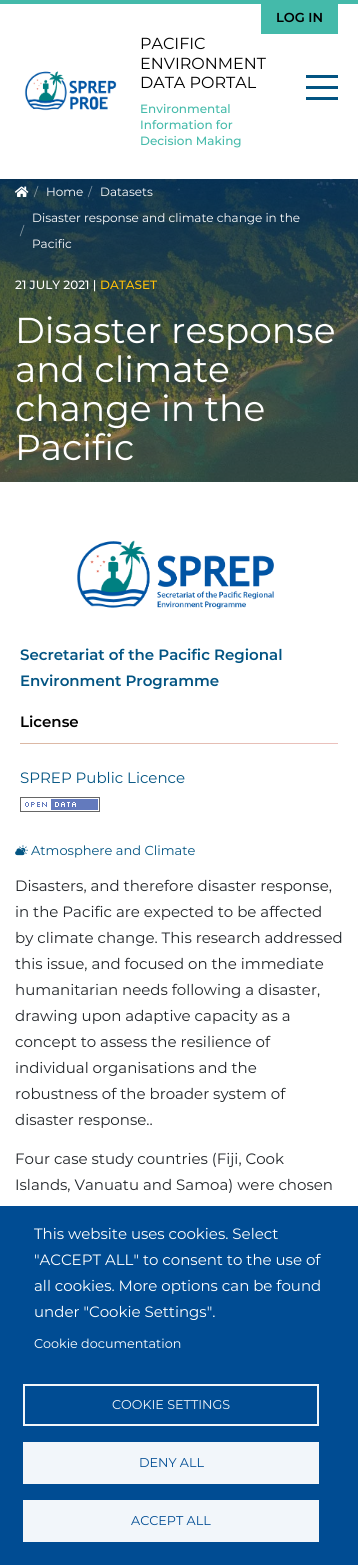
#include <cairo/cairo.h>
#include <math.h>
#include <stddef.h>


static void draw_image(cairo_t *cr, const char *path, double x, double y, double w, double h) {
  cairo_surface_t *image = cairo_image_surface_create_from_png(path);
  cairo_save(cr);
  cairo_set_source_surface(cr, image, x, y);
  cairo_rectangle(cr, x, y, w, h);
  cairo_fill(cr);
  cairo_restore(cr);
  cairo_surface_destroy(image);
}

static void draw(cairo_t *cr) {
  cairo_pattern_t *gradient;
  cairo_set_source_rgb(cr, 1, 1, 1);
  cairo_paint(cr);
  cairo_set_source_rgb(cr, 68 / 255.0, 186 / 255.0, 170 / 255.0);
  cairo_rectangle(cr, 0, 0, 358, 4);
  cairo_fill(cr);
  cairo_rectangle(cr, 261, 4, 77, 30);
  cairo_fill(cr);
  draw_image(cr, "images/1.png", 24, 71, 93, 40);
  cairo_set_source_rgb(cr, 2 / 255.0, 84 / 255.0, 130 / 255.0);
  cairo_rectangle(cr, 306, 86, 32, 3);
  cairo_fill(cr);
  cairo_rectangle(cr, 306, 75, 32, 3);
  cairo_fill(cr);
  cairo_rectangle(cr, 306, 97, 32, 3);
  cairo_fill(cr);
  draw_image(cr, "images/2.png", 0, 179, 358, 303);
  draw_image(cr, "images/3.png", 14, 186, 15, 11);
  draw_image(cr, "images/4.png", 77, 540, 197, 70);
  gradient = cairo_pattern_create_linear(20, 744, 338, 744);
  cairo_pattern_add_color_stop_rgba(gradient, 0, 219 / 255.0, 184 / 255.0, 163 / 255.0, 1);
  cairo_pattern_add_color_stop_rgba(gradient, 1, 235 / 255.0, 193 / 255.0, 189 / 255.0, 1);
  cairo_set_source(cr, gradient);
  cairo_pattern_destroy(gradient);
  cairo_rectangle(cr, 20, 743, 318, 1);
  cairo_fill(cr);
  draw_image(cr, "images/5.png", 20, 797, 80, 15);
  draw_image(cr, "images/6.png", 15, 845, 13, 11);
  cairo_set_source_rgb(cr, 0, 76 / 255.0, 147 / 255.0);
  cairo_rectangle(cr, 0, 1206, 358, 359);
  cairo_fill(cr);
  cairo_rectangle(cr, 24, 1385, 294, 40);
  cairo_set_source_rgb(cr, 242 / 255.0, 246 / 255.0, 250 / 255.0);
  cairo_stroke(cr);
  cairo_rectangle(cr, 23, 1442, 296, 42);
  cairo_fill(cr);
  cairo_rectangle(cr, 23, 1500, 296, 42);
  cairo_fill(cr);
  cairo_select_font_face(cr, "Montserrat SemiBold", CAIRO_FONT_SLANT_NORMAL, CAIRO_FONT_WEIGHT_NORMAL);
  cairo_set_font_size(cr, 13);
  cairo_set_source_rgb(cr, 0, 0, 0);
  cairo_move_to(cr, 276, 22);
  cairo_show_text(cr, "LOG IN");
  cairo_select_font_face(cr, "Montserrat", CAIRO_FONT_SLANT_NORMAL, CAIRO_FONT_WEIGHT_NORMAL);
  cairo_set_font_size(cr, 16);
  cairo_move_to(cr, 140, 49);
  cairo_show_text(cr, "PACIFIC");
  cairo_move_to(cr, 140, 69);
  cairo_show_text(cr, "ENVIRONMENT");
  cairo_move_to(cr, 140, 88);
  cairo_show_text(cr, "DATA PORTAL");
  cairo_select_font_face(cr, "Montserrat Medium", CAIRO_FONT_SLANT_NORMAL, CAIRO_FONT_WEIGHT_NORMAL);
  cairo_set_font_size(cr, 12);
  cairo_set_source_rgb(cr, 68 / 255.0, 186 / 255.0, 170 / 255.0);
  cairo_move_to(cr, 140, 113);
  cairo_show_text(cr, "Environmental");
  cairo_move_to(cr, 140, 129);
  cairo_show_text(cr, "Information for");
  cairo_move_to(cr, 140, 145);
  cairo_show_text(cr, "Decision Making");
  cairo_select_font_face(cr, "Montserrat", CAIRO_FONT_SLANT_NORMAL, CAIRO_FONT_WEIGHT_NORMAL);
  cairo_set_source_rgb(cr, 139 / 255.0, 157 / 255.0, 167 / 255.0);
  cairo_move_to(cr, 34, 196);
  cairo_show_text(cr, "/");
  cairo_set_source_rgb(cr, 1, 1, 1);
  cairo_move_to(cr, 46, 196);
  cairo_show_text(cr, "Home");
  cairo_set_source_rgb(cr, 133 / 255.0, 153 / 255.0, 168 / 255.0);
  cairo_move_to(cr, 88, 196);
  cairo_show_text(cr, "/");
  cairo_set_source_rgb(cr, 1, 1, 1);
  cairo_move_to(cr, 100, 196);
  cairo_show_text(cr, "Datasets");
  cairo_move_to(cr, 32, 222);
  cairo_show_text(cr, "Disaster response and climate change in the");
  cairo_set_source_rgb(cr, 139 / 255.0, 157 / 255.0, 167 / 255.0);
  cairo_move_to(cr, 20, 235);
  cairo_show_text(cr, "/");
  cairo_set_source_rgb(cr, 1, 1, 1);
  cairo_move_to(cr, 32, 248);
  cairo_show_text(cr, "Pacific");
  cairo_select_font_face(cr, "Montserrat Medium", CAIRO_FONT_SLANT_NORMAL, CAIRO_FONT_WEIGHT_NORMAL);
  cairo_move_to(cr, 15, 289);
  cairo_show_text(cr, "21 JULY 2021 |");
  cairo_set_source_rgb(cr, 1, 193 / 255.0, 7 / 255.0);
  cairo_move_to(cr, 100, 289);
  cairo_show_text(cr, "DATASET");
  cairo_select_font_face(cr, "Montserrat", CAIRO_FONT_SLANT_NORMAL, CAIRO_FONT_WEIGHT_NORMAL);
  cairo_set_font_size(cr, 36);
  cairo_set_source_rgb(cr, 1, 1, 1);
  cairo_move_to(cr, 15, 343);
  cairo_show_text(cr, "Disaster response");
  cairo_move_to(cr, 15, 382);
  cairo_show_text(cr, "and climate");
  cairo_move_to(cr, 15, 421);
  cairo_show_text(cr, "change in the");
  cairo_move_to(cr, 15, 460);
  cairo_show_text(cr, "Pacific");
  cairo_select_font_face(cr, "Montserrat SemiBold", CAIRO_FONT_SLANT_NORMAL, CAIRO_FONT_WEIGHT_NORMAL);
  cairo_set_font_size(cr, 15);
  cairo_set_source_rgb(cr, 2 / 255.0, 84 / 255.0, 130 / 255.0);
  cairo_move_to(cr, 20, 660);
  cairo_show_text(cr, "Secretariat of the Pacific Regional");
  cairo_move_to(cr, 20, 686);
  cairo_show_text(cr, "Environment Programme");
  cairo_set_source_rgb(cr, 0, 0, 0);
  cairo_move_to(cr, 20, 727);
  cairo_show_text(cr, "License");
  cairo_select_font_face(cr, "Montserrat", CAIRO_FONT_SLANT_NORMAL, CAIRO_FONT_WEIGHT_NORMAL);
  cairo_set_source_rgb(cr, 2 / 255.0, 84 / 255.0, 130 / 255.0);
  cairo_move_to(cr, 20, 783);
  cairo_show_text(cr, "SPREP Public Licence");
  cairo_set_font_size(cr, 13);
  cairo_move_to(cr, 31, 855);
  cairo_show_text(cr, "Atmosphere and Climate");
  cairo_set_font_size(cr, 15);
  cairo_set_source_rgb(cr, 33 / 255.0, 37 / 255.0, 41 / 255.0);
  cairo_move_to(cr, 15, 891);
  cairo_show_text(cr, "Disasters, and therefore disaster response,");
  cairo_move_to(cr, 15, 917);
  cairo_show_text(cr, "in the Pacific are expected to be affected");
  cairo_move_to(cr, 15, 943);
  cairo_show_text(cr, "by climate change. This research addressed");
  cairo_move_to(cr, 15, 969);
  cairo_show_text(cr, "this issue, and focused on the immediate");
  cairo_move_to(cr, 15, 995);
  cairo_show_text(cr, "humanitarian needs following a disaster,");
  cairo_move_to(cr, 15, 1021);
  cairo_show_text(cr, "drawing upon adaptive capacity as a");
  cairo_move_to(cr, 15, 1047);
  cairo_show_text(cr, "concept to assess the resilience of");
  cairo_move_to(cr, 15, 1073);
  cairo_show_text(cr, "individual organisations and the");
  cairo_move_to(cr, 15, 1099);
  cairo_show_text(cr, "robustness of the broader system of");
  cairo_move_to(cr, 15, 1125);
  cairo_show_text(cr, "disaster response..");
  cairo_move_to(cr, 15, 1164);
  cairo_show_text(cr, "Four case study countries (Fiji, Cook");
  cairo_move_to(cr, 15, 1190);
  cairo_show_text(cr, "Islands, Vanuatu and Samoa) were chosen");
  cairo_set_source_rgb(cr, 1, 1, 1);
  cairo_move_to(cr, 34, 1239);
  cairo_show_text(cr, "This website uses cookies. Select");
  cairo_move_to(cr, 34, 1265);
  cairo_show_text(cr, "\"ACCEPT ALL\" to consent to the use of");
  cairo_move_to(cr, 34, 1291);
  cairo_show_text(cr, "all cookies. More options can be found");
  cairo_move_to(cr, 34, 1317);
  cairo_show_text(cr, "under \"Cookie Settings\".");
  cairo_set_font_size(cr, 12.75);
  cairo_move_to(cr, 34, 1348);
  cairo_show_text(cr, "Cookie documentation");
  cairo_set_source_rgb(cr, 242 / 255.0, 246 / 255.0, 250 / 255.0);
  cairo_move_to(cr, 112, 1409);
  cairo_show_text(cr, "COOKIE SETTINGS");
  cairo_set_source_rgb(cr, 0, 76 / 255.0, 147 / 255.0);
  cairo_move_to(cr, 139, 1467);
  cairo_show_text(cr, "DENY ALL");
  cairo_move_to(cr, 131, 1525);
  cairo_show_text(cr, "ACCEPT ALL");
}

int main(void) {
  cairo_surface_t *surface = cairo_image_surface_create(CAIRO_FORMAT_RGB24, 358, 1565);
  cairo_t *cr = cairo_create(surface);
  cairo_font_options_t *options = cairo_font_options_create();
  cairo_font_options_set_hint_metrics(options, CAIRO_HINT_METRICS_OFF);
  cairo_font_options_set_hint_style(options, CAIRO_HINT_STYLE_NONE);
  cairo_set_font_options(cr, options);
  cairo_set_miter_limit(cr, 4);
  draw(cr);
  cairo_surface_write_to_png(surface, "out.png");
  cairo_font_options_destroy(options);
  cairo_destroy(cr);
  cairo_surface_destroy(surface);
  return 0;
}
